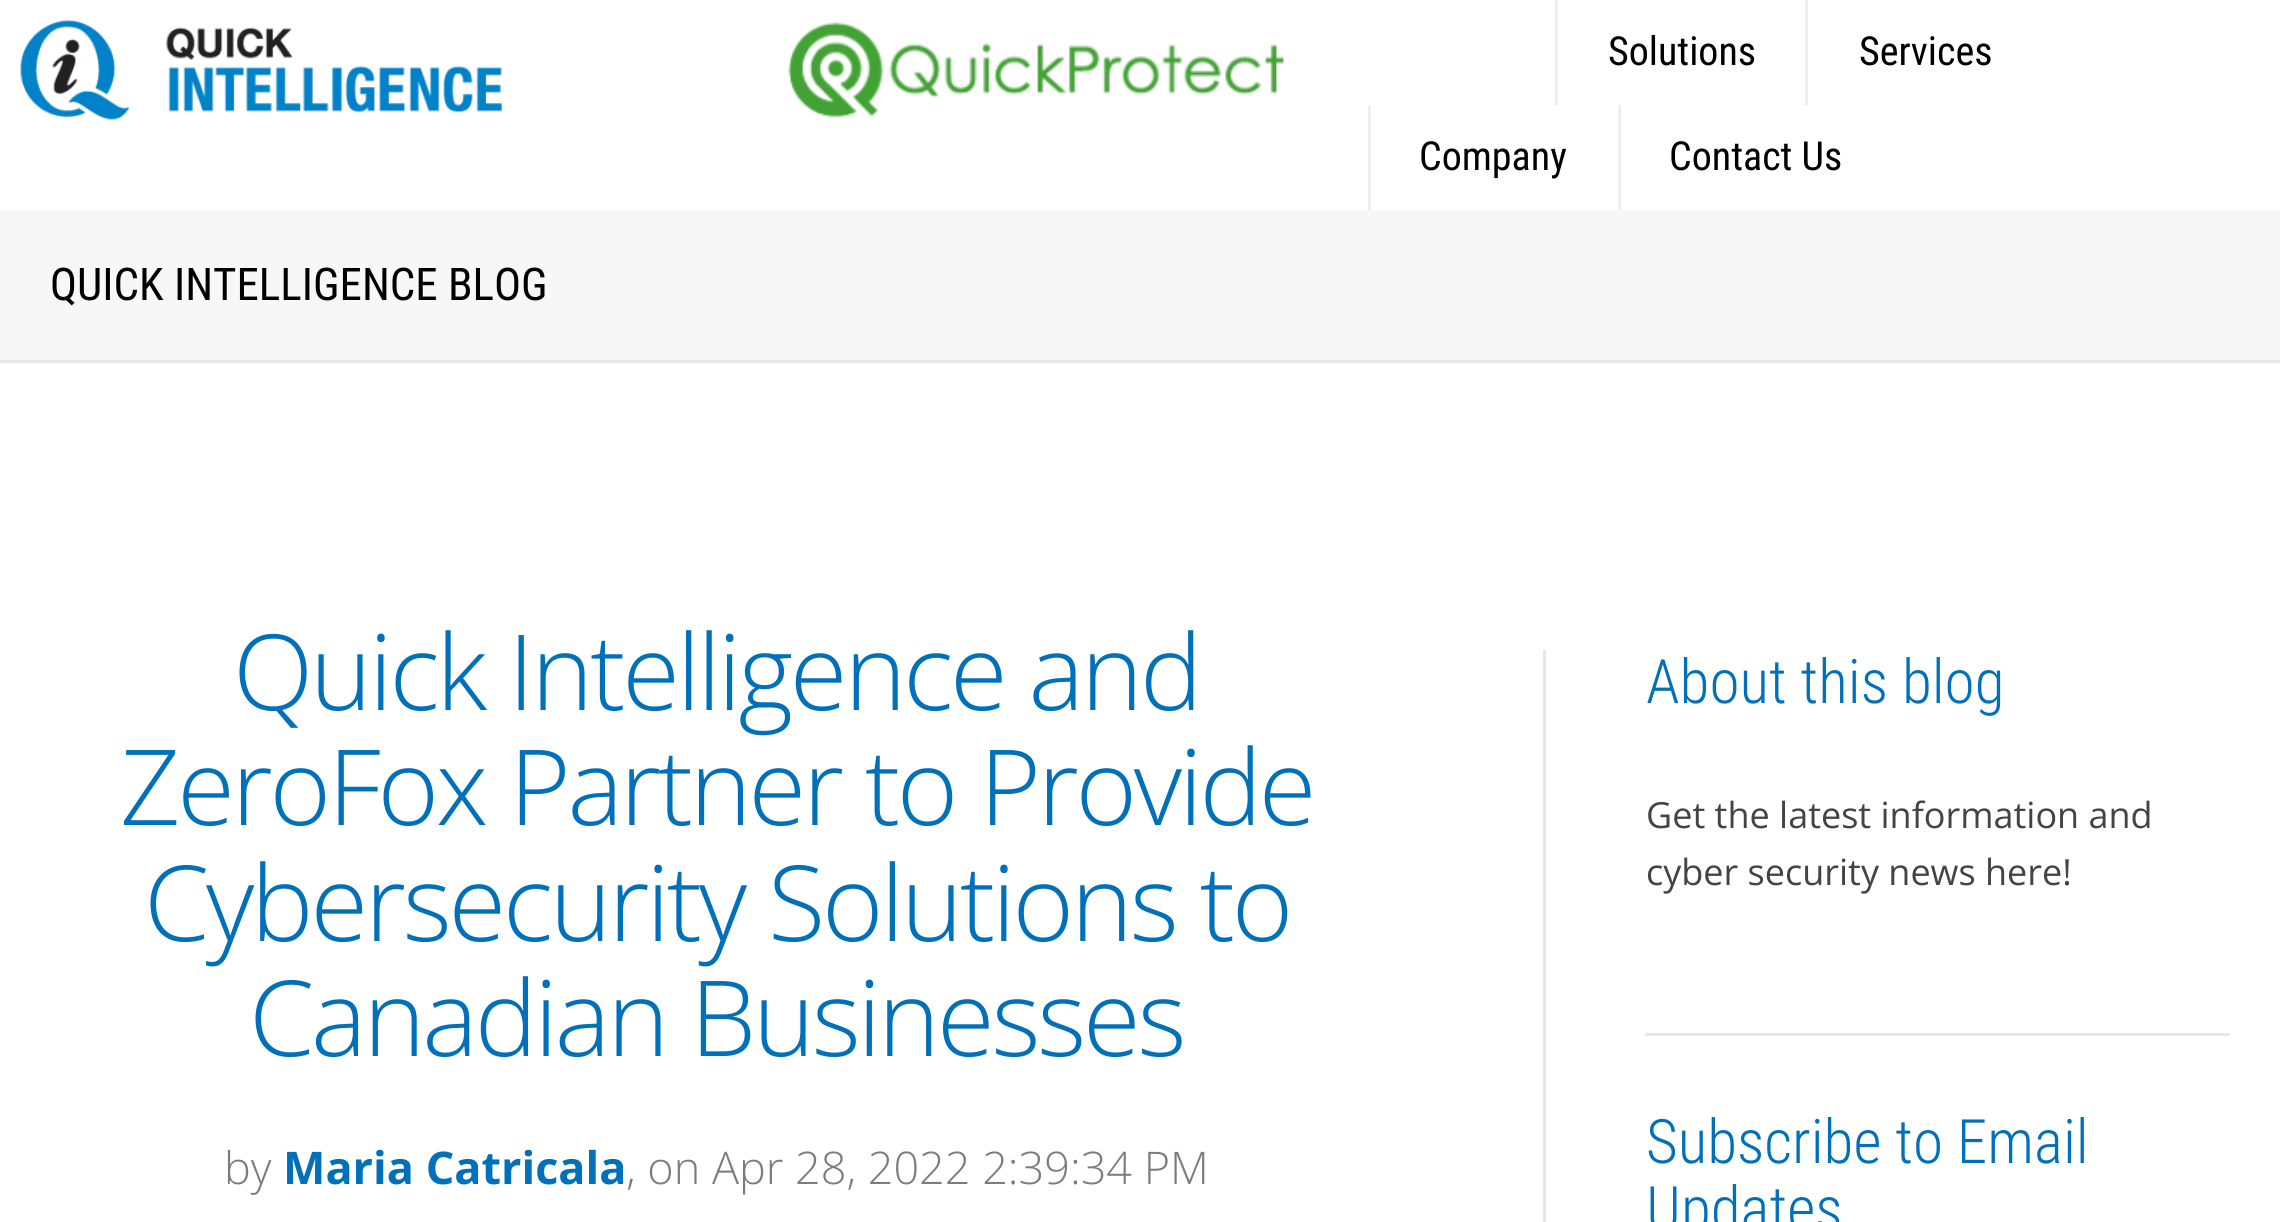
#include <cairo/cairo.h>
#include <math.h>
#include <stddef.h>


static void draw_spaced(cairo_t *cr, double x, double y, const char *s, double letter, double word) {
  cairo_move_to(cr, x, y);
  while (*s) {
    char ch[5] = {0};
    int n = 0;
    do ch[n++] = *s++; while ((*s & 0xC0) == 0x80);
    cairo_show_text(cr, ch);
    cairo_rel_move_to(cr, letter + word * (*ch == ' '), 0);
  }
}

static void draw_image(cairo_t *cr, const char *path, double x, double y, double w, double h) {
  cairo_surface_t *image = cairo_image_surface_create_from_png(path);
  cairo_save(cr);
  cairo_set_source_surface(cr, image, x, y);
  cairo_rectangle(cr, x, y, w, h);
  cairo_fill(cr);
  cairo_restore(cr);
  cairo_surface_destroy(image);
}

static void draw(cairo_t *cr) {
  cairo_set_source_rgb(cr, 1, 1, 1);
  cairo_paint(cr);
  draw_image(cr, "images/1.png", 20, 19, 483, 102);
  draw_image(cr, "images/2.png", 788, 21, 497, 97);
  cairo_set_source_rgb(cr, 238 / 255.0, 238 / 255.0, 238 / 255.0);
  cairo_rectangle(cr, 1555, 0, 3, 105);
  cairo_fill(cr);
  cairo_rectangle(cr, 1805, 0, 3, 105);
  cairo_fill(cr);
  cairo_rectangle(cr, 1368, 105, 3, 105);
  cairo_fill(cr);
  cairo_rectangle(cr, 1618, 105, 3, 105);
  cairo_fill(cr);
  cairo_set_source_rgb(cr, 247 / 255.0, 247 / 255.0, 247 / 255.0);
  cairo_rectangle(cr, 0, 210, 2280, 150);
  cairo_fill(cr);
  cairo_set_source_rgb(cr, 230 / 255.0, 230 / 255.0, 230 / 255.0);
  cairo_rectangle(cr, 0, 360, 2280, 3);
  cairo_fill(cr);
  cairo_rectangle(cr, 1543, 650, 3, 572);
  cairo_fill(cr);
  cairo_rectangle(cr, 1645, 1033, 585, 3);
  cairo_fill(cr);
  cairo_select_font_face(cr, "Roboto Condensed", CAIRO_FONT_SLANT_NORMAL, CAIRO_FONT_WEIGHT_NORMAL);
  cairo_set_font_size(cr, 40);
  cairo_set_source_rgb(cr, 0, 0, 0);
  cairo_move_to(cr, 1608, 65);
  cairo_show_text(cr, "Solutions");
  cairo_move_to(cr, 1859, 65);
  cairo_show_text(cr, "Services");
  cairo_move_to(cr, 1419, 170);
  cairo_show_text(cr, "Company");
  cairo_move_to(cr, 1669, 170);
  cairo_show_text(cr, "Contact Us");
  cairo_set_font_size(cr, 45);
  cairo_move_to(cr, 50, 300);
  cairo_show_text(cr, "QUICK INTELLIGENCE BLOG");
  cairo_select_font_face(cr, "Open Sans Light", CAIRO_FONT_SLANT_NORMAL, CAIRO_FONT_WEIGHT_NORMAL);
  cairo_set_font_size(cr, 105);
  cairo_set_source_rgb(cr, 0, 112 / 255.0, 187 / 255.0);
  draw_spaced(cr, 233, 710, "Quick Intelligence and", -3.15, 0);
  draw_spaced(cr, 120, 825, "ZeroFox Partner to Provide", -3.15, 0);
  draw_spaced(cr, 144, 941, "Cybersecurity Solutions to", -3.15, 0);
  draw_spaced(cr, 249, 1056, "Canadian Businesses", -3.15, 0);
  cairo_set_font_size(cr, 45);
  cairo_set_source_rgb(cr, 124 / 255.0, 124 / 255.0, 124 / 255.0);
  cairo_move_to(cr, 224, 1184);
  cairo_show_text(cr, "by");
  cairo_select_font_face(cr, "Open Sans", CAIRO_FONT_SLANT_NORMAL, CAIRO_FONT_WEIGHT_BOLD);
  cairo_set_source_rgb(cr, 0, 112 / 255.0, 187 / 255.0);
  cairo_move_to(cr, 283, 1184);
  cairo_show_text(cr, "Maria Catricala");
  cairo_select_font_face(cr, "Open Sans Light", CAIRO_FONT_SLANT_NORMAL, CAIRO_FONT_WEIGHT_NORMAL);
  cairo_set_source_rgb(cr, 124 / 255.0, 124 / 255.0, 124 / 255.0);
  cairo_move_to(cr, 626, 1184);
  cairo_show_text(cr, ", on Apr 28, 2022 2:39:34 PM");
  cairo_select_font_face(cr, "Roboto Condensed Light", CAIRO_FONT_SLANT_NORMAL, CAIRO_FONT_WEIGHT_NORMAL);
  cairo_set_font_size(cr, 61.25);
  cairo_set_source_rgb(cr, 0, 112 / 255.0, 187 / 255.0);
  cairo_move_to(cr, 1646, 703);
  cairo_show_text(cr, "About this blog");
  cairo_select_font_face(cr, "Open Sans", CAIRO_FONT_SLANT_NORMAL, CAIRO_FONT_WEIGHT_NORMAL);
  cairo_set_font_size(cr, 36);
  cairo_set_source_rgb(cr, 68 / 255.0, 68 / 255.0, 68 / 255.0);
  cairo_move_to(cr, 1646, 828);
  cairo_show_text(cr, "Get the latest information and");
  cairo_move_to(cr, 1646, 885);
  cairo_show_text(cr, "cyber security news here!");
  cairo_select_font_face(cr, "Roboto Condensed Light", CAIRO_FONT_SLANT_NORMAL, CAIRO_FONT_WEIGHT_NORMAL);
  cairo_set_font_size(cr, 61.25);
  cairo_set_source_rgb(cr, 0, 112 / 255.0, 187 / 255.0);
  cairo_move_to(cr, 1646, 1163);
  cairo_show_text(cr, "Subscribe to Email");
  cairo_move_to(cr, 1646, 1230);
  cairo_show_text(cr, "Updates");
}

int main(void) {
  cairo_surface_t *surface = cairo_image_surface_create(CAIRO_FORMAT_RGB24, 2280, 1222);
  cairo_t *cr = cairo_create(surface);
  cairo_font_options_t *options = cairo_font_options_create();
  cairo_font_options_set_hint_metrics(options, CAIRO_HINT_METRICS_OFF);
  cairo_font_options_set_hint_style(options, CAIRO_HINT_STYLE_NONE);
  cairo_set_font_options(cr, options);
  cairo_set_miter_limit(cr, 4);
  draw(cr);
  cairo_surface_write_to_png(surface, "out.png");
  cairo_font_options_destroy(options);
  cairo_destroy(cr);
  cairo_surface_destroy(surface);
  return 0;
}
